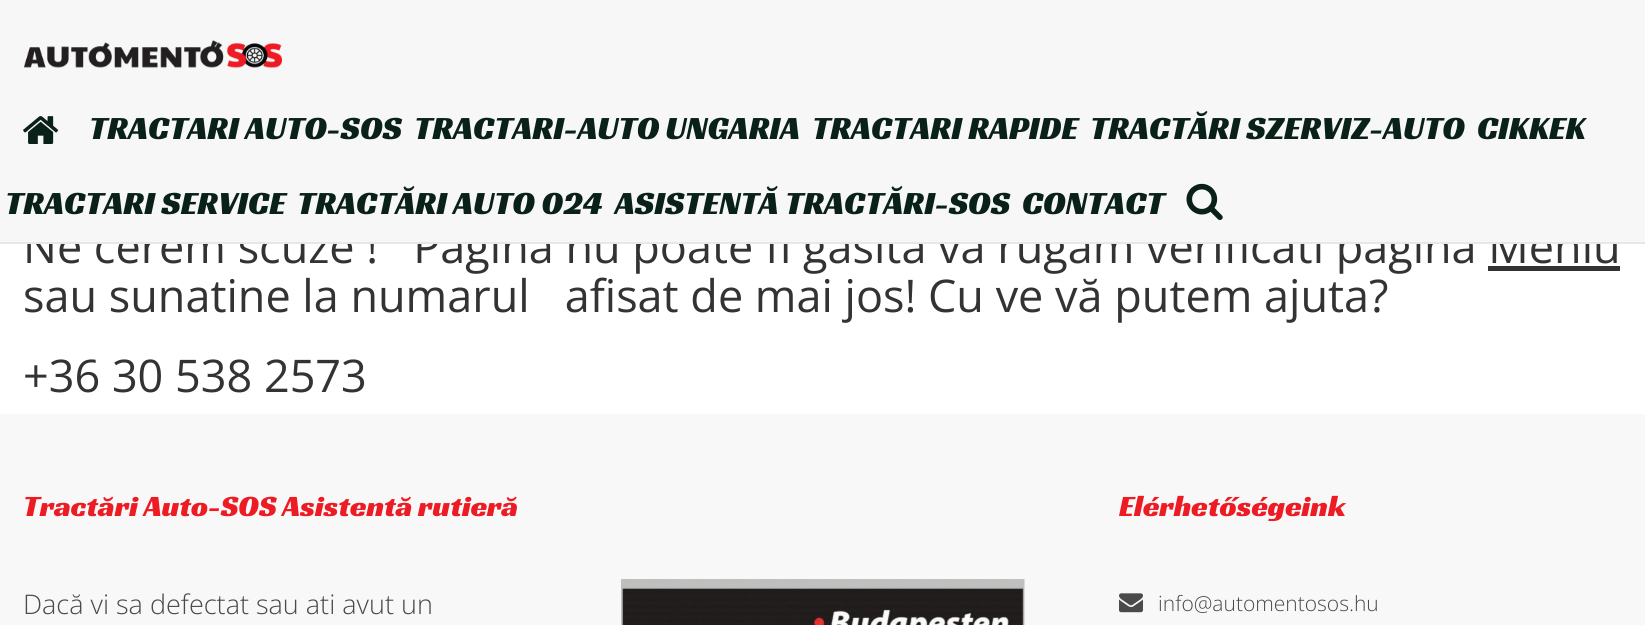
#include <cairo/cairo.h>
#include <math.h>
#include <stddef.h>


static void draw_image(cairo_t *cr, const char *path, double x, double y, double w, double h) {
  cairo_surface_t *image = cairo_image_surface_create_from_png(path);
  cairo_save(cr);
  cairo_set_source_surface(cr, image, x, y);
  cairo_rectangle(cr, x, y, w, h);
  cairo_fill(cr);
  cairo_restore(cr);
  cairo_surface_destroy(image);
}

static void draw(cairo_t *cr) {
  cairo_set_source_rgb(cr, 1, 1, 1);
  cairo_paint(cr);
  cairo_set_source_rgb(cr, 51 / 255.0, 51 / 255.0, 51 / 255.0);
  cairo_rectangle(cr, 1488, 266, 132, 5);
  cairo_fill(cr);
  cairo_set_source_rgb(cr, 248 / 255.0, 248 / 255.0, 248 / 255.0);
  cairo_rectangle(cr, 0, 414, 1645, 211);
  cairo_fill(cr);
  draw_image(cr, "images/4.png", 621, 579, 404, 46);
  draw_image(cr, "images/5.png", 1119, 593, 24, 20);
  cairo_select_font_face(cr, "Open Sans", CAIRO_FONT_SLANT_NORMAL, CAIRO_FONT_WEIGHT_NORMAL);
  cairo_set_font_size(cr, 45);
  cairo_set_source_rgb(cr, 51 / 255.0, 51 / 255.0, 51 / 255.0);
  cairo_move_to(cr, 23, 263);
  cairo_show_text(cr, "Ne cerem scuze !   Pagina nu poate fi gasită vă rugăm verificati pagina Meniu");
  cairo_set_source_rgb(cr, 247 / 255.0, 247 / 255.0, 247 / 255.0);
  cairo_rectangle(cr, 0, 0, 1645, 242);
  cairo_fill(cr);
  draw_image(cr, "images/3.png", 1186, 183, 37, 37);
  cairo_select_font_face(cr, "Racing Sans One", CAIRO_FONT_SLANT_NORMAL, CAIRO_FONT_WEIGHT_NORMAL);
  cairo_set_font_size(cr, 33);
  cairo_set_source_rgb(cr, 9 / 255.0, 33 / 255.0, 24 / 255.0);
  cairo_move_to(cr, 1022, 214);
  cairo_show_text(cr, "CONTACT");
  cairo_move_to(cr, 615, 214);
  cairo_show_text(cr, "ASISTENTĂ TRACTĂRI-SOS");
  cairo_move_to(cr, 297, 214);
  cairo_show_text(cr, "TRACTĂRI AUTO 024");
  cairo_move_to(cr, 5, 214);
  cairo_show_text(cr, "TRACTARI SERVICE");
  cairo_move_to(cr, 1477, 139);
  cairo_show_text(cr, "CIKKEK");
  cairo_move_to(cr, 1090, 139);
  cairo_show_text(cr, "TRACTĂRI SZERVIZ-AUTO");
  cairo_move_to(cr, 812, 139);
  cairo_show_text(cr, "TRACTARI RAPIDE");
  cairo_move_to(cr, 414, 139);
  cairo_show_text(cr, "TRACTARI-AUTO UNGARIA");
  cairo_move_to(cr, 89, 139);
  cairo_show_text(cr, "TRACTARI AUTO-SOS");
  draw_image(cr, "images/2.png", 23, 116, 36, 28);
  draw_image(cr, "images/1.png", 24, 40, 258, 28);
  cairo_set_source_rgb(cr, 231 / 255.0, 231 / 255.0, 231 / 255.0);
  cairo_rectangle(cr, 0, 242, 1645, 2);
  cairo_fill(cr);
  cairo_select_font_face(cr, "Open Sans", CAIRO_FONT_SLANT_NORMAL, CAIRO_FONT_WEIGHT_NORMAL);
  cairo_set_font_size(cr, 45);
  cairo_set_source_rgb(cr, 51 / 255.0, 51 / 255.0, 51 / 255.0);
  cairo_move_to(cr, 23, 312);
  cairo_show_text(cr, "sau sunatine la numarul   afisat de mai jos! Cu ve vă putem ajuta?");
  cairo_move_to(cr, 23, 392);
  cairo_show_text(cr, "+36 30 538 2573");
  cairo_select_font_face(cr, "Racing Sans One", CAIRO_FONT_SLANT_NORMAL, CAIRO_FONT_WEIGHT_NORMAL);
  cairo_set_font_size(cr, 30);
  cairo_set_source_rgb(cr, 237 / 255.0, 28 / 255.0, 36 / 255.0);
  cairo_move_to(cr, 23, 516);
  cairo_show_text(cr, "Tractări Auto-SOS Asistentă rutieră");
  cairo_select_font_face(cr, "Open Sans Light", CAIRO_FONT_SLANT_NORMAL, CAIRO_FONT_WEIGHT_NORMAL);
  cairo_set_font_size(cr, 27);
  cairo_set_source_rgb(cr, 74 / 255.0, 74 / 255.0, 74 / 255.0);
  cairo_move_to(cr, 23, 614);
  cairo_show_text(cr, "Dacă vi sa defectat sau ati avut un");
  cairo_select_font_face(cr, "Racing Sans One", CAIRO_FONT_SLANT_NORMAL, CAIRO_FONT_WEIGHT_NORMAL);
  cairo_set_font_size(cr, 30);
  cairo_set_source_rgb(cr, 237 / 255.0, 28 / 255.0, 36 / 255.0);
  cairo_move_to(cr, 1119, 516);
  cairo_show_text(cr, "Elérhetőségeink");
  cairo_select_font_face(cr, "Open Sans Light", CAIRO_FONT_SLANT_NORMAL, CAIRO_FONT_WEIGHT_NORMAL);
  cairo_set_font_size(cr, 21);
  cairo_set_source_rgb(cr, 74 / 255.0, 74 / 255.0, 74 / 255.0);
  cairo_move_to(cr, 1158, 611);
  cairo_show_text(cr, "info@automentosos.hu");
}

int main(void) {
  cairo_surface_t *surface = cairo_image_surface_create(CAIRO_FORMAT_RGB24, 1645, 625);
  cairo_t *cr = cairo_create(surface);
  cairo_font_options_t *options = cairo_font_options_create();
  cairo_font_options_set_hint_metrics(options, CAIRO_HINT_METRICS_OFF);
  cairo_font_options_set_hint_style(options, CAIRO_HINT_STYLE_NONE);
  cairo_set_font_options(cr, options);
  cairo_set_miter_limit(cr, 4);
  draw(cr);
  cairo_surface_write_to_png(surface, "out.png");
  cairo_font_options_destroy(options);
  cairo_destroy(cr);
  cairo_surface_destroy(surface);
  return 0;
}
